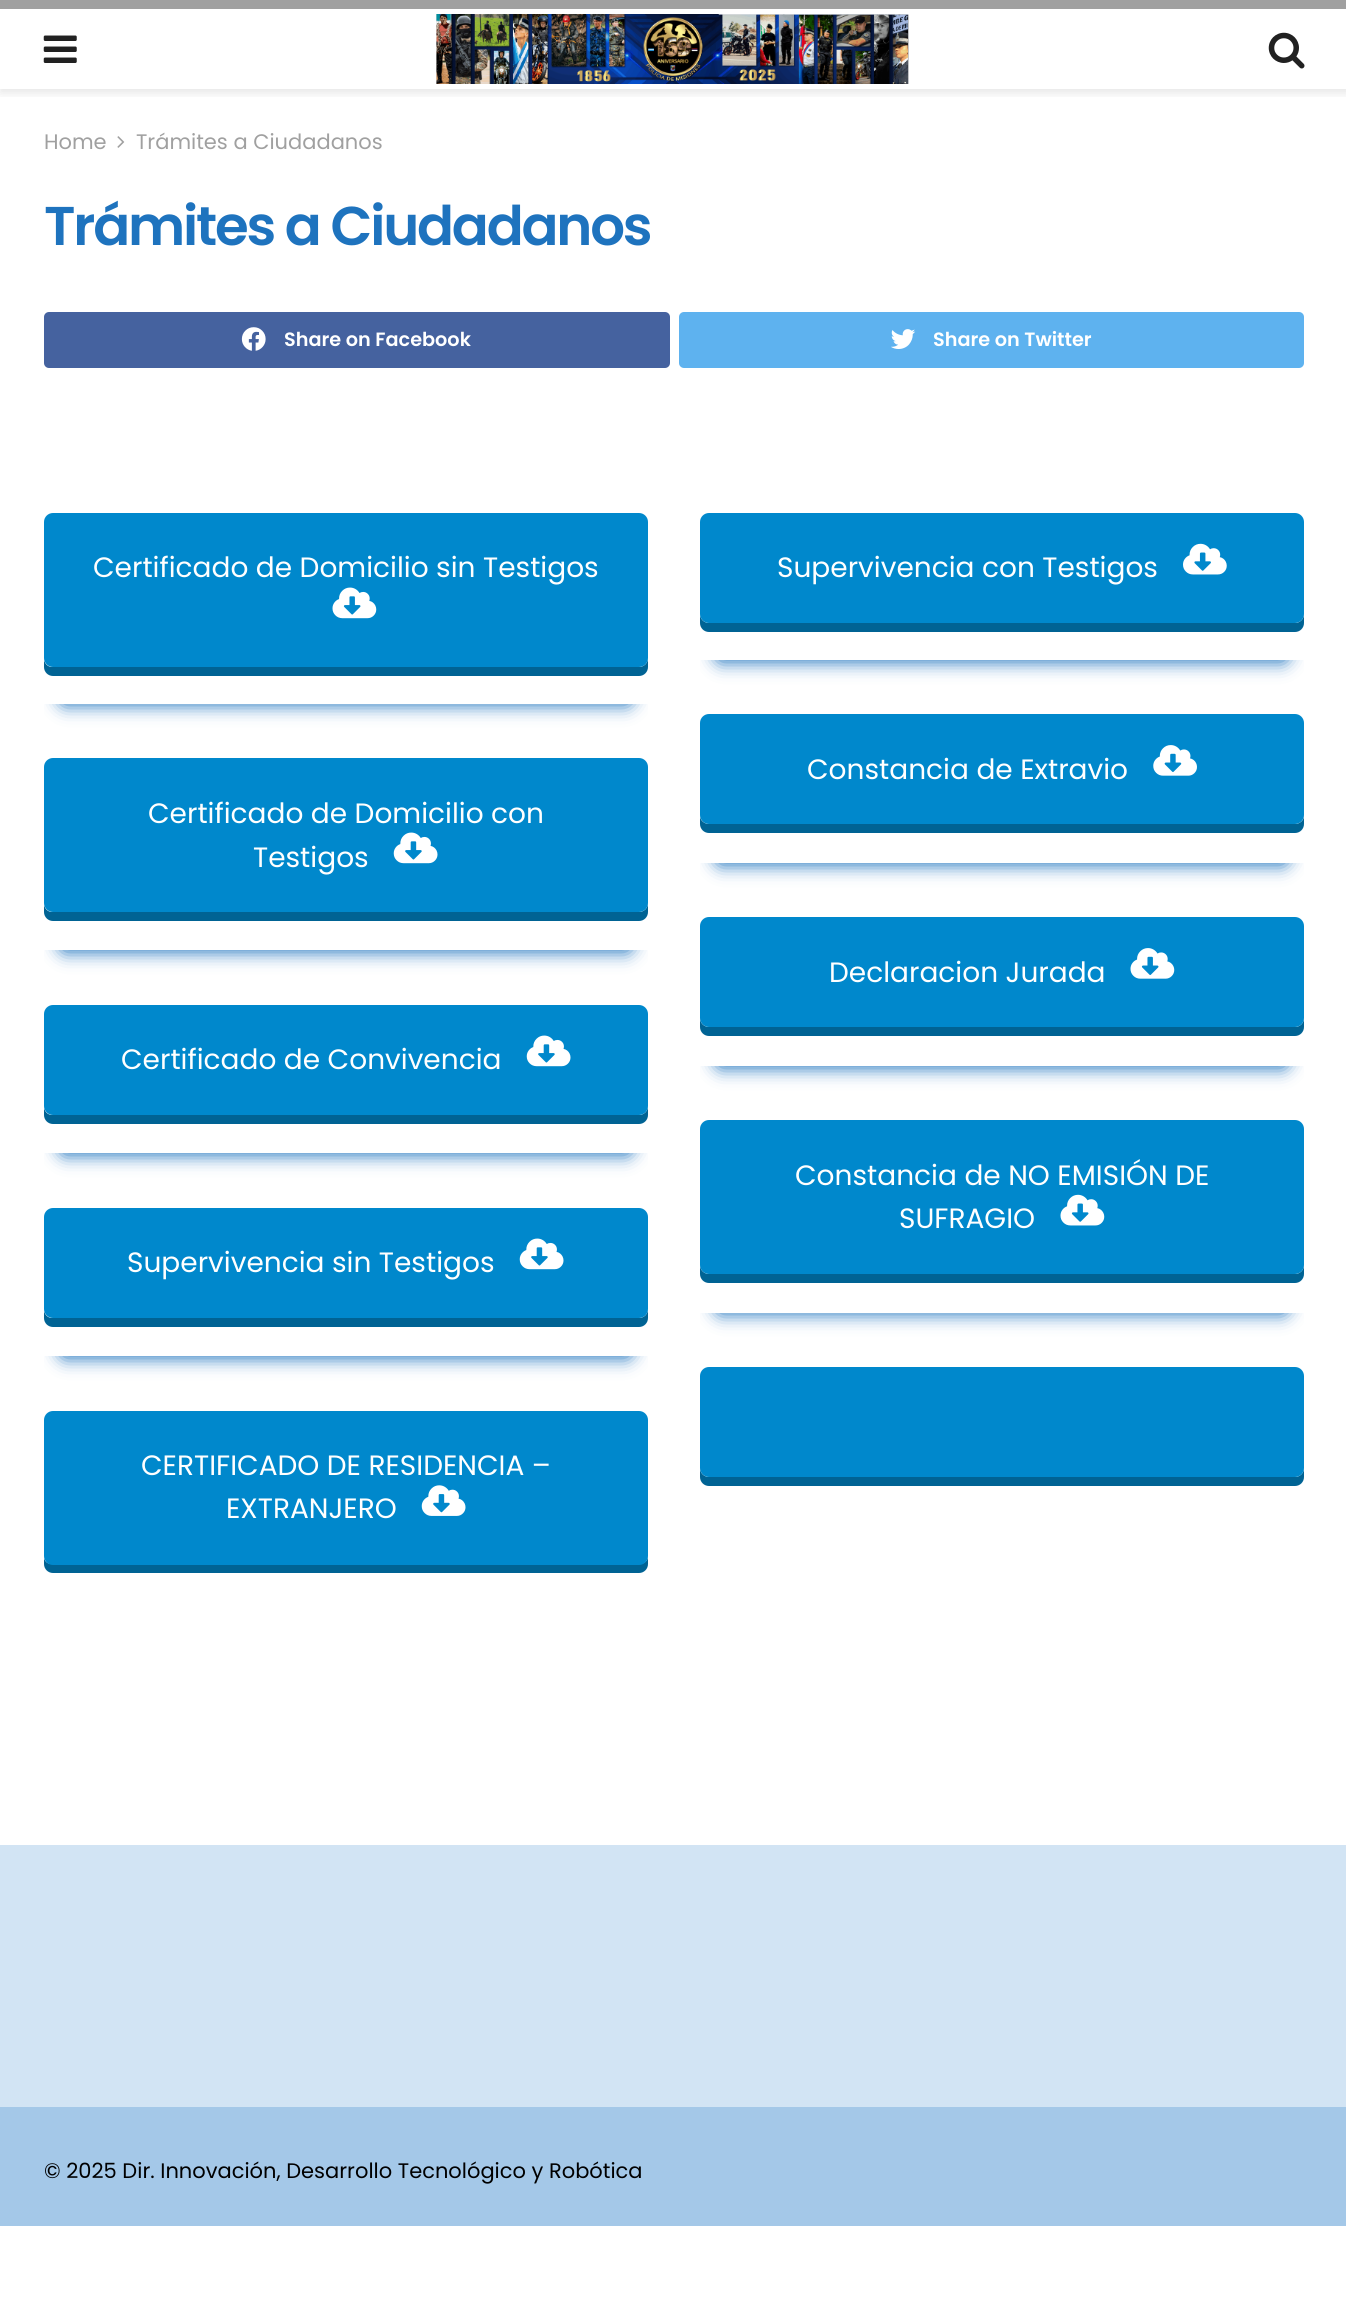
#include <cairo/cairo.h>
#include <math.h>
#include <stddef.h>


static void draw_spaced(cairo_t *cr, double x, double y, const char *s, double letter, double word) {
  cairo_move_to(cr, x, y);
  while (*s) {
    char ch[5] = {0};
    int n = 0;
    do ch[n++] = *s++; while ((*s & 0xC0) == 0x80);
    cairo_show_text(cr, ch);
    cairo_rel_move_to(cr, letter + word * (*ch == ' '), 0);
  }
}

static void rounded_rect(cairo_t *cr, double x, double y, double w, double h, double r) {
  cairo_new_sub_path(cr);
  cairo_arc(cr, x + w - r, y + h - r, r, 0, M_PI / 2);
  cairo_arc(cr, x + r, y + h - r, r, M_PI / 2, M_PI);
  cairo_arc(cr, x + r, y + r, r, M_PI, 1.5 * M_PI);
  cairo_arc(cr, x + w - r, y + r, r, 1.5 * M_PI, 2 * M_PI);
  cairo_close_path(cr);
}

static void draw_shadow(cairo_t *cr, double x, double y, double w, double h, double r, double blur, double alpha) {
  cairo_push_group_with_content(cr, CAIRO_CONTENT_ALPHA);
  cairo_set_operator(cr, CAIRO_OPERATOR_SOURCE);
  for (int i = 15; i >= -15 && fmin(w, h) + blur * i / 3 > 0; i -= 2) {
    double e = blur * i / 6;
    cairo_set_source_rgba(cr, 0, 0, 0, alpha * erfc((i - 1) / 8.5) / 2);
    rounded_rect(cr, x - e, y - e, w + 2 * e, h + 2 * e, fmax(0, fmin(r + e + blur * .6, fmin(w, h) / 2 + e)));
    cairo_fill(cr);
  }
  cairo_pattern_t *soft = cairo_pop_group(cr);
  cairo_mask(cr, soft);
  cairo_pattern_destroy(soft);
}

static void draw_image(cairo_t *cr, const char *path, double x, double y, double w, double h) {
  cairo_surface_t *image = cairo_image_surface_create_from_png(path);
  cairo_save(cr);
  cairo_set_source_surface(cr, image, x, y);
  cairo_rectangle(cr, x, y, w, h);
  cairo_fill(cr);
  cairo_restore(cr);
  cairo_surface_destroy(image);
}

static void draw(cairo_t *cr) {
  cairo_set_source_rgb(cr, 1, 1, 1);
  cairo_paint(cr);
  cairo_save(cr);
  cairo_rectangle(cr, 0, 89, 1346, 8);
  cairo_clip(cr);
  cairo_set_source_rgb(cr, 0, 0, 0);
  draw_shadow(cr, 0, 4, 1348, 89, 0, 5, 0.1);
  cairo_restore(cr);
  cairo_set_source_rgb(cr, 160 / 255.0, 160 / 255.0, 160 / 255.0);
  cairo_rectangle(cr, 0, 0, 1346, 9);
  cairo_fill(cr);
  draw_image(cr, "images/1.png", 43, 35, 34, 28);
  draw_image(cr, "images/2.png", 436, 14, 473, 70);
  draw_image(cr, "images/3.png", 1268, 32, 37, 37);
  draw_image(cr, "images/4.png", 117, 136, 8, 12);
  cairo_set_source_rgb(cr, 69 / 255.0, 98 / 255.0, 159 / 255.0);
  rounded_rect(cr, 44, 312, 626, 56, 5);
  cairo_fill(cr);
  draw_image(cr, "images/5.png", 241, 327, 25, 24);
  cairo_set_source_rgb(cr, 94 / 255.0, 178 / 255.0, 239 / 255.0);
  rounded_rect(cr, 679, 312, 625, 56, 5);
  cairo_fill(cr);
  draw_image(cr, "images/6.png", 891, 329, 25, 20);
  cairo_set_source_rgb(cr, 0, 99 / 255.0, 148 / 255.0);
  cairo_new_path(cr);
  cairo_move_to(cr, 44, 660);
  cairo_line_to(cr, 44, 667);
  cairo_curve_to(cr, 44, 672, 48, 676, 53, 676);
  cairo_line_to(cr, 639, 676);
  cairo_curve_to(cr, 644, 676, 648, 672, 648, 667);
  cairo_line_to(cr, 648, 531);
  cairo_line_to(cr, 648, 528);
  cairo_line_to(cr, 648, 658);
  cairo_curve_to(cr, 648, 663, 644, 667, 639, 667);
  cairo_line_to(cr, 52, 667);
  cairo_curve_to(cr, 48, 667, 45, 664, 44, 660);
  cairo_close_path(cr);
  cairo_fill(cr);
  cairo_set_source_rgb(cr, 0, 136 / 255.0, 204 / 255.0);
  rounded_rect(cr, 44, 513, 604, 154, 9);
  cairo_fill(cr);
  draw_image(cr, "images/7.png", 332, 587, 45, 32);
  cairo_save(cr);
  cairo_rectangle(cr, 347, 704, 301, 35);
  cairo_clip(cr);
  cairo_set_source_rgb(cr, 30 / 255.0, 115 / 255.0, 190 / 255.0);
  draw_shadow(cr, 25, 684, 607, 21, 10.5, 9, 1);
  cairo_restore(cr);
  cairo_save(cr);
  cairo_rectangle(cr, 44, 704, 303, 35);
  cairo_clip(cr);
  cairo_set_source_rgb(cr, 30 / 255.0, 115 / 255.0, 190 / 255.0);
  draw_shadow(cr, 60, 684, 607, 21, 10.5, 9, 1);
  cairo_restore(cr);
  cairo_set_source_rgb(cr, 0, 99 / 255.0, 148 / 255.0);
  cairo_new_path(cr);
  cairo_move_to(cr, 44, 905);
  cairo_line_to(cr, 44, 912);
  cairo_curve_to(cr, 44, 917, 48, 921, 53, 921);
  cairo_line_to(cr, 639, 921);
  cairo_curve_to(cr, 644, 921, 648, 917, 648, 912);
  cairo_line_to(cr, 648, 776);
  cairo_line_to(cr, 648, 773);
  cairo_line_to(cr, 648, 903);
  cairo_curve_to(cr, 648, 908, 644, 912, 639, 912);
  cairo_line_to(cr, 52, 912);
  cairo_curve_to(cr, 48, 912, 45, 909, 44, 905);
  cairo_close_path(cr);
  cairo_fill(cr);
  cairo_set_source_rgb(cr, 0, 136 / 255.0, 204 / 255.0);
  rounded_rect(cr, 44, 758, 604, 154, 9);
  cairo_fill(cr);
  draw_image(cr, "images/8.png", 393, 832, 45, 32);
  cairo_save(cr);
  cairo_rectangle(cr, 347, 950, 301, 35);
  cairo_clip(cr);
  cairo_set_source_rgb(cr, 30 / 255.0, 115 / 255.0, 190 / 255.0);
  draw_shadow(cr, 25, 931, 607, 21, 10.5, 9, 1);
  cairo_restore(cr);
  cairo_save(cr);
  cairo_rectangle(cr, 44, 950, 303, 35);
  cairo_clip(cr);
  cairo_set_source_rgb(cr, 30 / 255.0, 115 / 255.0, 190 / 255.0);
  draw_shadow(cr, 60, 931, 607, 21, 10.5, 9, 1);
  cairo_restore(cr);
  cairo_set_source_rgb(cr, 0, 99 / 255.0, 148 / 255.0);
  cairo_new_path(cr);
  cairo_move_to(cr, 44, 1108);
  cairo_line_to(cr, 44, 1115);
  cairo_curve_to(cr, 44, 1120, 48, 1124, 53, 1124);
  cairo_line_to(cr, 639, 1124);
  cairo_curve_to(cr, 644, 1124, 648, 1120, 648, 1115);
  cairo_line_to(cr, 648, 1022);
  cairo_line_to(cr, 648, 1019);
  cairo_line_to(cr, 648, 1106);
  cairo_curve_to(cr, 648, 1111, 644, 1115, 639, 1115);
  cairo_line_to(cr, 52, 1115);
  cairo_curve_to(cr, 48, 1115, 45, 1112, 44, 1108);
  cairo_close_path(cr);
  cairo_fill(cr);
  cairo_set_source_rgb(cr, 0, 136 / 255.0, 204 / 255.0);
  rounded_rect(cr, 44, 1005, 604, 110, 9);
  cairo_fill(cr);
  draw_image(cr, "images/8.png", 526, 1035, 45, 32);
  cairo_save(cr);
  cairo_rectangle(cr, 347, 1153, 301, 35);
  cairo_clip(cr);
  cairo_set_source_rgb(cr, 30 / 255.0, 115 / 255.0, 190 / 255.0);
  draw_shadow(cr, 25, 1134, 607, 21, 10.5, 9, 1);
  cairo_restore(cr);
  cairo_save(cr);
  cairo_rectangle(cr, 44, 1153, 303, 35);
  cairo_clip(cr);
  cairo_set_source_rgb(cr, 30 / 255.0, 115 / 255.0, 190 / 255.0);
  draw_shadow(cr, 60, 1134, 607, 21, 10.5, 9, 1);
  cairo_restore(cr);
  cairo_set_source_rgb(cr, 0, 99 / 255.0, 148 / 255.0);
  cairo_new_path(cr);
  cairo_move_to(cr, 44, 1311);
  cairo_line_to(cr, 44, 1318);
  cairo_curve_to(cr, 44, 1323, 48, 1327, 53, 1327);
  cairo_line_to(cr, 639, 1327);
  cairo_curve_to(cr, 644, 1327, 648, 1323, 648, 1318);
  cairo_line_to(cr, 648, 1225);
  cairo_line_to(cr, 648, 1222);
  cairo_line_to(cr, 648, 1309);
  cairo_curve_to(cr, 648, 1314, 644, 1318, 639, 1318);
  cairo_line_to(cr, 52, 1318);
  cairo_curve_to(cr, 48, 1318, 45, 1315, 44, 1311);
  cairo_close_path(cr);
  cairo_fill(cr);
  cairo_set_source_rgb(cr, 0, 136 / 255.0, 204 / 255.0);
  rounded_rect(cr, 44, 1208, 604, 110, 9);
  cairo_fill(cr);
  draw_image(cr, "images/8.png", 519, 1238, 45, 32);
  cairo_save(cr);
  cairo_rectangle(cr, 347, 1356, 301, 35);
  cairo_clip(cr);
  cairo_set_source_rgb(cr, 30 / 255.0, 115 / 255.0, 190 / 255.0);
  draw_shadow(cr, 25, 1337, 607, 21, 10.5, 9, 1);
  cairo_restore(cr);
  cairo_save(cr);
  cairo_rectangle(cr, 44, 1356, 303, 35);
  cairo_clip(cr);
  cairo_set_source_rgb(cr, 30 / 255.0, 115 / 255.0, 190 / 255.0);
  draw_shadow(cr, 60, 1337, 607, 21, 10.5, 9, 1);
  cairo_restore(cr);
  cairo_set_source_rgb(cr, 0, 99 / 255.0, 148 / 255.0);
  cairo_new_path(cr);
  cairo_move_to(cr, 44, 1558);
  cairo_line_to(cr, 44, 1564);
  cairo_curve_to(cr, 44, 1569, 48, 1573, 53, 1573);
  cairo_line_to(cr, 639, 1573);
  cairo_curve_to(cr, 644, 1573, 648, 1569, 648, 1564);
  cairo_line_to(cr, 648, 1428);
  cairo_line_to(cr, 648, 1425);
  cairo_line_to(cr, 648, 1556);
  cairo_curve_to(cr, 648, 1561, 644, 1564, 639, 1564);
  cairo_line_to(cr, 52, 1564);
  cairo_curve_to(cr, 48, 1564, 45, 1562, 44, 1558);
  cairo_close_path(cr);
  cairo_fill(cr);
  cairo_set_source_rgb(cr, 0, 136 / 255.0, 204 / 255.0);
  rounded_rect(cr, 44, 1411, 604, 154, 9);
  cairo_fill(cr);
  draw_image(cr, "images/9.png", 421, 1485, 45, 31);
  cairo_set_source_rgb(cr, 0, 99 / 255.0, 148 / 255.0);
  cairo_new_path(cr);
  cairo_move_to(cr, 700, 614);
  cairo_line_to(cr, 700, 623);
  cairo_curve_to(cr, 700, 628, 704, 632, 709, 632);
  cairo_line_to(cr, 1295, 632);
  cairo_curve_to(cr, 1300, 632, 1304, 628, 1304, 623);
  cairo_line_to(cr, 1304, 529);
  cairo_line_to(cr, 1304, 614);
  cairo_curve_to(cr, 1304, 619, 1300, 623, 1295, 623);
  cairo_line_to(cr, 709, 623);
  cairo_curve_to(cr, 704, 623, 700, 619, 700, 614);
  cairo_close_path(cr);
  cairo_fill(cr);
  cairo_set_source_rgb(cr, 0, 136 / 255.0, 204 / 255.0);
  rounded_rect(cr, 700, 513, 604, 110, 9);
  cairo_fill(cr);
  draw_image(cr, "images/10.png", 1183, 543, 44, 32);
  cairo_save(cr);
  cairo_rectangle(cr, 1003, 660, 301, 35);
  cairo_clip(cr);
  cairo_set_source_rgb(cr, 30 / 255.0, 115 / 255.0, 190 / 255.0);
  draw_shadow(cr, 681, 641, 607, 21, 10.5, 9, 1);
  cairo_restore(cr);
  cairo_save(cr);
  cairo_rectangle(cr, 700, 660, 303, 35);
  cairo_clip(cr);
  cairo_set_source_rgb(cr, 30 / 255.0, 115 / 255.0, 190 / 255.0);
  draw_shadow(cr, 716, 641, 607, 21, 10.5, 9, 1);
  cairo_restore(cr);
  cairo_set_source_rgb(cr, 0, 99 / 255.0, 148 / 255.0);
  cairo_new_path(cr);
  cairo_move_to(cr, 700, 816);
  cairo_line_to(cr, 700, 824);
  cairo_curve_to(cr, 700, 829, 704, 833, 709, 833);
  cairo_line_to(cr, 1295, 833);
  cairo_curve_to(cr, 1300, 833, 1304, 829, 1304, 824);
  cairo_line_to(cr, 1304, 730);
  cairo_line_to(cr, 1304, 816);
  cairo_curve_to(cr, 1304, 820, 1300, 824, 1295, 824);
  cairo_line_to(cr, 709, 824);
  cairo_curve_to(cr, 704, 824, 700, 820, 700, 816);
  cairo_close_path(cr);
  cairo_fill(cr);
  cairo_set_source_rgb(cr, 0, 136 / 255.0, 204 / 255.0);
  rounded_rect(cr, 700, 714, 604, 110, 9);
  cairo_fill(cr);
  draw_image(cr, "images/11.png", 1153, 745, 44, 31);
  cairo_save(cr);
  cairo_rectangle(cr, 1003, 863, 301, 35);
  cairo_clip(cr);
  cairo_set_source_rgb(cr, 30 / 255.0, 115 / 255.0, 190 / 255.0);
  draw_shadow(cr, 681, 844, 607, 21, 10.5, 9, 1);
  cairo_restore(cr);
  cairo_save(cr);
  cairo_rectangle(cr, 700, 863, 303, 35);
  cairo_clip(cr);
  cairo_set_source_rgb(cr, 30 / 255.0, 115 / 255.0, 190 / 255.0);
  draw_shadow(cr, 716, 844, 607, 21, 10.5, 9, 1);
  cairo_restore(cr);
  cairo_set_source_rgb(cr, 0, 99 / 255.0, 148 / 255.0);
  cairo_new_path(cr);
  cairo_move_to(cr, 700, 1018);
  cairo_line_to(cr, 700, 1027);
  cairo_curve_to(cr, 700, 1032, 704, 1036, 709, 1036);
  cairo_line_to(cr, 1295, 1036);
  cairo_curve_to(cr, 1300, 1036, 1304, 1032, 1304, 1027);
  cairo_line_to(cr, 1304, 933);
  cairo_line_to(cr, 1304, 1018);
  cairo_curve_to(cr, 1304, 1023, 1300, 1027, 1295, 1027);
  cairo_line_to(cr, 709, 1027);
  cairo_curve_to(cr, 704, 1027, 700, 1023, 700, 1018);
  cairo_close_path(cr);
  cairo_fill(cr);
  cairo_set_source_rgb(cr, 0, 136 / 255.0, 204 / 255.0);
  rounded_rect(cr, 700, 917, 604, 110, 9);
  cairo_fill(cr);
  draw_image(cr, "images/12.png", 1130, 948, 45, 31);
  cairo_save(cr);
  cairo_rectangle(cr, 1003, 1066, 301, 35);
  cairo_clip(cr);
  cairo_set_source_rgb(cr, 30 / 255.0, 115 / 255.0, 190 / 255.0);
  draw_shadow(cr, 681, 1047, 607, 21, 10.5, 9, 1);
  cairo_restore(cr);
  cairo_save(cr);
  cairo_rectangle(cr, 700, 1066, 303, 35);
  cairo_clip(cr);
  cairo_set_source_rgb(cr, 30 / 255.0, 115 / 255.0, 190 / 255.0);
  draw_shadow(cr, 716, 1047, 607, 21, 10.5, 9, 1);
  cairo_restore(cr);
  cairo_set_source_rgb(cr, 0, 99 / 255.0, 148 / 255.0);
  cairo_new_path(cr);
  cairo_move_to(cr, 700, 1265);
  cairo_line_to(cr, 700, 1274);
  cairo_curve_to(cr, 700, 1279, 704, 1283, 709, 1283);
  cairo_line_to(cr, 1295, 1283);
  cairo_curve_to(cr, 1300, 1283, 1304, 1279, 1304, 1274);
  cairo_line_to(cr, 1304, 1136);
  cairo_line_to(cr, 1304, 1265);
  cairo_curve_to(cr, 1304, 1270, 1300, 1274, 1295, 1274);
  cairo_line_to(cr, 709, 1274);
  cairo_curve_to(cr, 704, 1274, 700, 1270, 700, 1265);
  cairo_close_path(cr);
  cairo_fill(cr);
  cairo_set_source_rgb(cr, 0, 136 / 255.0, 204 / 255.0);
  rounded_rect(cr, 700, 1120, 604, 154, 9);
  cairo_fill(cr);
  draw_image(cr, "images/13.png", 1060, 1194, 45, 32);
  cairo_save(cr);
  cairo_rectangle(cr, 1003, 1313, 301, 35);
  cairo_clip(cr);
  cairo_set_source_rgb(cr, 30 / 255.0, 115 / 255.0, 190 / 255.0);
  draw_shadow(cr, 681, 1293, 607, 21, 10.5, 9, 1);
  cairo_restore(cr);
  cairo_save(cr);
  cairo_rectangle(cr, 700, 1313, 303, 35);
  cairo_clip(cr);
  cairo_set_source_rgb(cr, 30 / 255.0, 115 / 255.0, 190 / 255.0);
  draw_shadow(cr, 716, 1293, 607, 21, 10.5, 9, 1);
  cairo_restore(cr);
  cairo_set_source_rgb(cr, 0, 99 / 255.0, 148 / 255.0);
  cairo_new_path(cr);
  cairo_move_to(cr, 700, 1468);
  cairo_line_to(cr, 700, 1477);
  cairo_curve_to(cr, 700, 1482, 704, 1486, 709, 1486);
  cairo_line_to(cr, 1295, 1486);
  cairo_curve_to(cr, 1300, 1486, 1304, 1482, 1304, 1477);
  cairo_line_to(cr, 1304, 1383);
  cairo_line_to(cr, 1304, 1468);
  cairo_curve_to(cr, 1304, 1473, 1300, 1477, 1295, 1477);
  cairo_line_to(cr, 709, 1477);
  cairo_curve_to(cr, 704, 1477, 700, 1473, 700, 1468);
  cairo_close_path(cr);
  cairo_fill(cr);
  cairo_set_source_rgb(cr, 0, 136 / 255.0, 204 / 255.0);
  rounded_rect(cr, 700, 1367, 604, 110, 9);
  cairo_fill(cr);
  cairo_set_source_rgb(cr, 210 / 255.0, 228 / 255.0, 244 / 255.0);
  cairo_rectangle(cr, 0, 1845, 1346, 262);
  cairo_fill(cr);
  cairo_set_source_rgb(cr, 164 / 255.0, 200 / 255.0, 232 / 255.0);
  cairo_rectangle(cr, 0, 2107, 1346, 119);
  cairo_fill(cr);
  cairo_select_font_face(cr, "Poppins", CAIRO_FONT_SLANT_NORMAL, CAIRO_FONT_WEIGHT_NORMAL);
  cairo_set_font_size(cr, 21);
  cairo_set_source_rgb(cr, 160 / 255.0, 160 / 255.0, 160 / 255.0);
  cairo_move_to(cr, 44, 149);
  cairo_show_text(cr, "Home");
  cairo_move_to(cr, 136, 149);
  cairo_show_text(cr, "Trámites a Ciudadanos");
  cairo_select_font_face(cr, "Poppins SemiBold", CAIRO_FONT_SLANT_NORMAL, CAIRO_FONT_WEIGHT_NORMAL);
  cairo_set_font_size(cr, 54.6);
  cairo_set_source_rgb(cr, 30 / 255.0, 115 / 255.0, 190 / 255.0);
  draw_spaced(cr, 44, 245, "Trámites a Ciudadanos", -2.2, 0);
  cairo_set_font_size(cr, 19.25);
  cairo_set_source_rgb(cr, 1, 1, 1);
  cairo_move_to(cr, 284, 346);
  cairo_show_text(cr, "Share on Facebook");
  cairo_move_to(cr, 933, 346);
  cairo_show_text(cr, "Share on Twitter");
  cairo_select_font_face(cr, "Poppins", CAIRO_FONT_SLANT_NORMAL, CAIRO_FONT_WEIGHT_NORMAL);
  cairo_set_font_size(cr, 28);
  cairo_move_to(cr, 93, 577);
  cairo_show_text(cr, "Certificado de Domicilio sin Testigos");
  cairo_move_to(cr, 148, 823);
  cairo_show_text(cr, "Certificado de Domicilio con");
  cairo_move_to(cr, 253, 867);
  cairo_show_text(cr, "Testigos");
  cairo_move_to(cr, 121, 1069);
  cairo_show_text(cr, "Certificado de Convivencia");
  cairo_move_to(cr, 127, 1272);
  cairo_show_text(cr, "Supervivencia sin Testigos");
  cairo_move_to(cr, 141, 1475);
  cairo_show_text(cr, "CERTIFICADO DE RESIDENCIA –");
  cairo_move_to(cr, 226, 1518);
  cairo_show_text(cr, "EXTRANJERO");
  cairo_move_to(cr, 777, 577);
  cairo_show_text(cr, "Supervivencia con Testigos");
  cairo_move_to(cr, 807, 779);
  cairo_show_text(cr, "Constancia de Extravio");
  cairo_move_to(cr, 829, 982);
  cairo_show_text(cr, "Declaracion Jurada");
  cairo_move_to(cr, 795, 1185);
  cairo_show_text(cr, "Constancia de NO EMISIÓN DE");
  cairo_move_to(cr, 899, 1228);
  cairo_show_text(cr, "SUFRAGIO");
  cairo_set_font_size(cr, 21);
  cairo_set_source_rgb(cr, 0, 0, 0);
  cairo_move_to(cr, 44, 2178);
  cairo_show_text(cr, "© 2025 Dir. Innovación, Desarrollo Tecnológico y Robótica");
}

int main(void) {
  cairo_surface_t *surface = cairo_image_surface_create(CAIRO_FORMAT_RGB24, 1346, 2305);
  cairo_t *cr = cairo_create(surface);
  cairo_font_options_t *options = cairo_font_options_create();
  cairo_font_options_set_hint_metrics(options, CAIRO_HINT_METRICS_OFF);
  cairo_font_options_set_hint_style(options, CAIRO_HINT_STYLE_NONE);
  cairo_set_font_options(cr, options);
  cairo_set_miter_limit(cr, 4);
  draw(cr);
  cairo_surface_write_to_png(surface, "out.png");
  cairo_font_options_destroy(options);
  cairo_destroy(cr);
  cairo_surface_destroy(surface);
  return 0;
}
